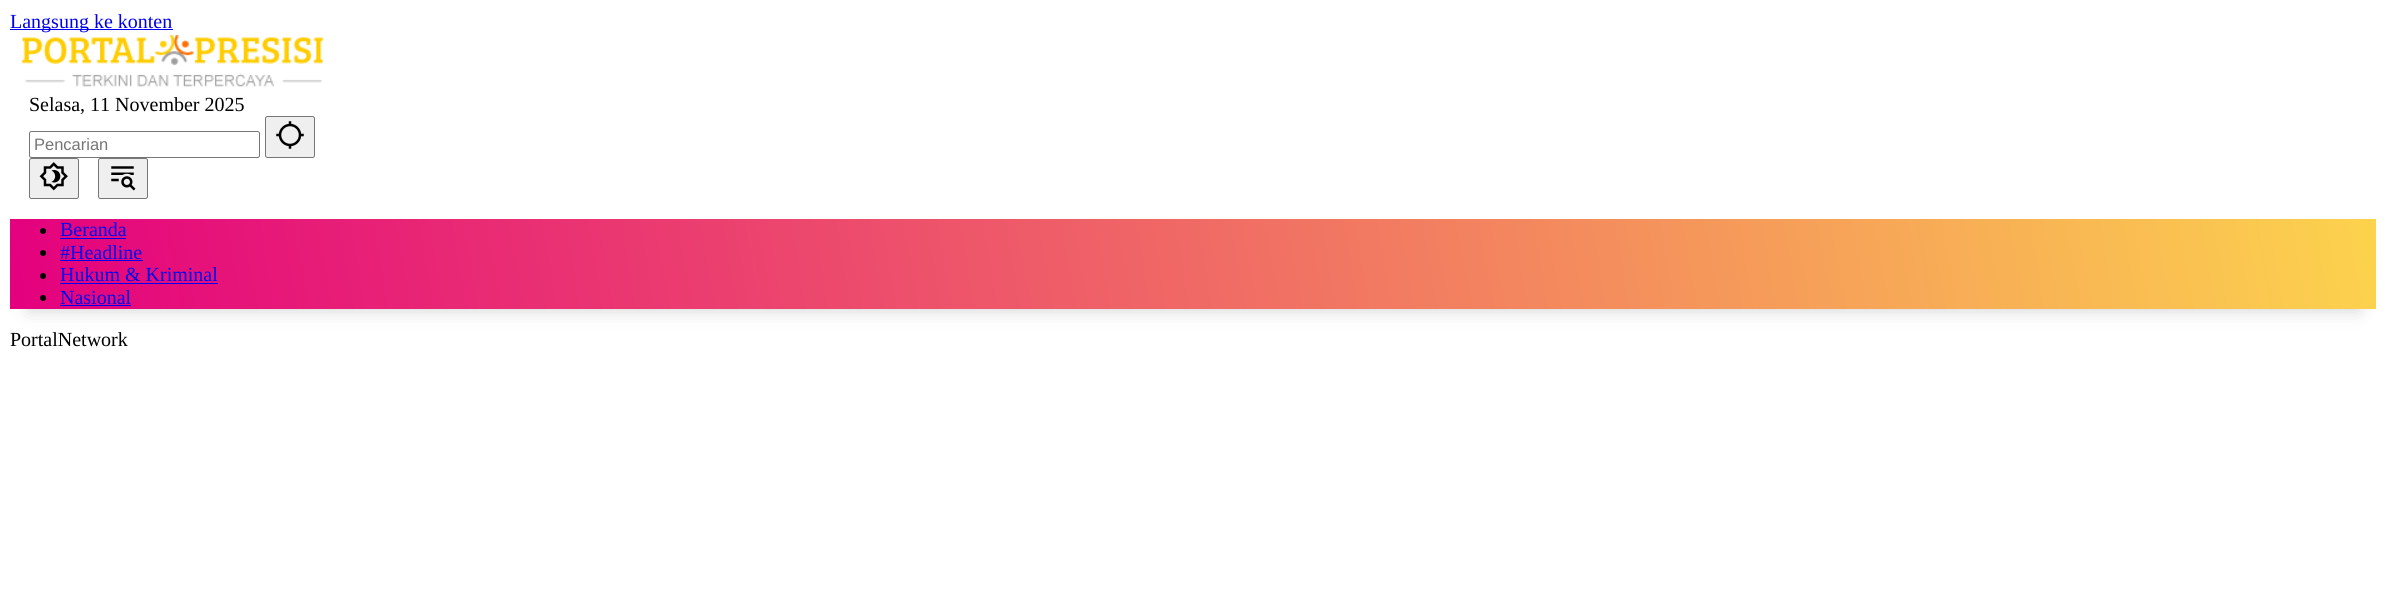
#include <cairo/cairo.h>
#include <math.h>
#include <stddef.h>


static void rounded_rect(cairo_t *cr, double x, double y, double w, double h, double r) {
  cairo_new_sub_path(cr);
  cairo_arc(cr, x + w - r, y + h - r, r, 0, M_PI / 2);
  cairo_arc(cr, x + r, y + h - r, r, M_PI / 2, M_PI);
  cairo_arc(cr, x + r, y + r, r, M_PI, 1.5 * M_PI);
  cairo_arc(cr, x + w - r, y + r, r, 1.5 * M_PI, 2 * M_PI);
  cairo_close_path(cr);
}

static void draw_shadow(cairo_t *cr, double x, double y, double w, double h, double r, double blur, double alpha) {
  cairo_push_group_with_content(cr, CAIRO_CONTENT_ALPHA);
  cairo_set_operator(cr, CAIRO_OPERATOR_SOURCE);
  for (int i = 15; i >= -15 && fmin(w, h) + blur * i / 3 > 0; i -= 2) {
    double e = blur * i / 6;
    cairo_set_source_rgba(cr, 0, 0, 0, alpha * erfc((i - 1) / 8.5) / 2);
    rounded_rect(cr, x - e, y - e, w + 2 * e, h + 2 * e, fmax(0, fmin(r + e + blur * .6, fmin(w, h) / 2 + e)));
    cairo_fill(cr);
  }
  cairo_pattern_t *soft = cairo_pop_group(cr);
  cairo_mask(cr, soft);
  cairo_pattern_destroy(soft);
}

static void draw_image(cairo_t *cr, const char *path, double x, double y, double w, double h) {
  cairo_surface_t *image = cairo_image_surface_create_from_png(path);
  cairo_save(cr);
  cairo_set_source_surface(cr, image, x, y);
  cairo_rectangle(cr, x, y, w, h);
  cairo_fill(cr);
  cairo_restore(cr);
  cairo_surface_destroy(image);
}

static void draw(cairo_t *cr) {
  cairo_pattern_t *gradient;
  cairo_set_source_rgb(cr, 1, 1, 1);
  cairo_paint(cr);
  cairo_set_source_rgb(cr, 0, 0, 238 / 255.0);
  cairo_rectangle(cr, 10, 29, 163, 1);
  cairo_fill(cr);
  draw_image(cr, "images/1.png", 21, 34, 303, 53);
  rounded_rect(cr, 29.5, 131.5, 230, 26, 2);
  cairo_set_source_rgb(cr, 118 / 255.0, 118 / 255.0, 118 / 255.0);
  cairo_set_line_width(cr, 1);
  cairo_stroke(cr);
  cairo_set_source_rgb(cr, 239 / 255.0, 239 / 255.0, 239 / 255.0);
  rounded_rect(cr, 265.5, 116.5, 49, 41, 2);
  cairo_fill_preserve(cr);
  cairo_set_source_rgb(cr, 118 / 255.0, 118 / 255.0, 118 / 255.0);
  cairo_stroke(cr);
  draw_image(cr, "images/2.png", 276, 121, 28, 28);
  cairo_set_source_rgb(cr, 239 / 255.0, 239 / 255.0, 239 / 255.0);
  rounded_rect(cr, 29.5, 158.5, 49, 40, 2);
  cairo_fill_preserve(cr);
  cairo_set_source_rgb(cr, 118 / 255.0, 118 / 255.0, 118 / 255.0);
  cairo_stroke(cr);
  draw_image(cr, "images/3.png", 39, 162, 29, 29);
  cairo_set_source_rgb(cr, 239 / 255.0, 239 / 255.0, 239 / 255.0);
  rounded_rect(cr, 98.5, 158.5, 49, 40, 2);
  cairo_fill_preserve(cr);
  cairo_set_source_rgb(cr, 118 / 255.0, 118 / 255.0, 118 / 255.0);
  cairo_stroke(cr);
  draw_image(cr, "images/4.png", 111, 166, 25, 25);
  cairo_set_source_rgb(cr, 0, 0, 0);
  draw_shadow(cr, 29, 256, 2329, 53, 0, 9.5, 0.2);
  gradient = cairo_pattern_create_linear(38, 467, 2348, 60);
  cairo_pattern_add_color_stop_rgba(gradient, 0, 228 / 255.0, 0, 126 / 255.0, 1);
  cairo_pattern_add_color_stop_rgba(gradient, 1, 252 / 255.0, 211 / 255.0, 77 / 255.0, 1);
  cairo_set_source(cr, gradient);
  cairo_pattern_destroy(gradient);
  cairo_rectangle(cr, 10, 219, 2366, 90);
  cairo_fill(cr);
  cairo_set_source_rgb(cr, 0, 0, 0);
  cairo_arc(cr, 43, 231, 3, 0, 2 * M_PI);
  cairo_fill(cr);
  cairo_set_source_rgb(cr, 0, 0, 238 / 255.0);
  cairo_rectangle(cr, 60, 238, 66, 1);
  cairo_fill(cr);
  cairo_set_source_rgb(cr, 0, 0, 0);
  cairo_arc(cr, 43, 253, 3, 0, 2 * M_PI);
  cairo_fill(cr);
  cairo_set_source_rgb(cr, 0, 0, 238 / 255.0);
  cairo_rectangle(cr, 60, 260, 83, 1);
  cairo_fill(cr);
  cairo_set_source_rgb(cr, 0, 0, 0);
  cairo_arc(cr, 43, 276, 3, 0, 2 * M_PI);
  cairo_fill(cr);
  cairo_set_source_rgb(cr, 0, 0, 238 / 255.0);
  cairo_rectangle(cr, 60, 283, 158, 1);
  cairo_fill(cr);
  cairo_set_source_rgb(cr, 0, 0, 0);
  cairo_arc(cr, 43, 298, 3, 0, 2 * M_PI);
  cairo_fill(cr);
  cairo_set_source_rgb(cr, 0, 0, 238 / 255.0);
  cairo_rectangle(cr, 60, 305, 71, 1);
  cairo_fill(cr);
  cairo_select_font_face(cr, "Liberation Serif", CAIRO_FONT_SLANT_NORMAL, CAIRO_FONT_WEIGHT_NORMAL);
  cairo_set_font_size(cr, 20);
  cairo_move_to(cr, 10, 28);
  cairo_show_text(cr, "Langsung ke konten");
  cairo_set_source_rgb(cr, 0, 0, 0);
  cairo_move_to(cr, 29, 111);
  cairo_show_text(cr, "Selasa, 11 November 2025");
  cairo_select_font_face(cr, "Liberation Sans", CAIRO_FONT_SLANT_NORMAL, CAIRO_FONT_WEIGHT_NORMAL);
  cairo_set_font_size(cr, 16.5);
  cairo_set_source_rgb(cr, 117 / 255.0, 117 / 255.0, 117 / 255.0);
  cairo_move_to(cr, 34, 150);
  cairo_show_text(cr, "Pencarian");
  cairo_select_font_face(cr, "Liberation Serif", CAIRO_FONT_SLANT_NORMAL, CAIRO_FONT_WEIGHT_NORMAL);
  cairo_set_font_size(cr, 20);
  cairo_set_source_rgb(cr, 0, 0, 238 / 255.0);
  cairo_move_to(cr, 60, 236);
  cairo_show_text(cr, "Beranda");
  cairo_move_to(cr, 60, 259);
  cairo_show_text(cr, "#Headline");
  cairo_move_to(cr, 60, 281);
  cairo_show_text(cr, "Hukum & Kriminal");
  cairo_move_to(cr, 60, 304);
  cairo_show_text(cr, "Nasional");
  cairo_set_source_rgb(cr, 0, 0, 0);
  cairo_move_to(cr, 10, 346);
  cairo_show_text(cr, "PortalNetwork");
}

int main(void) {
  cairo_surface_t *surface = cairo_image_surface_create(CAIRO_FORMAT_RGB24, 2386, 615);
  cairo_t *cr = cairo_create(surface);
  cairo_font_options_t *options = cairo_font_options_create();
  cairo_font_options_set_hint_metrics(options, CAIRO_HINT_METRICS_OFF);
  cairo_font_options_set_hint_style(options, CAIRO_HINT_STYLE_NONE);
  cairo_set_font_options(cr, options);
  cairo_set_miter_limit(cr, 4);
  draw(cr);
  cairo_surface_write_to_png(surface, "out.png");
  cairo_font_options_destroy(options);
  cairo_destroy(cr);
  cairo_surface_destroy(surface);
  return 0;
}
